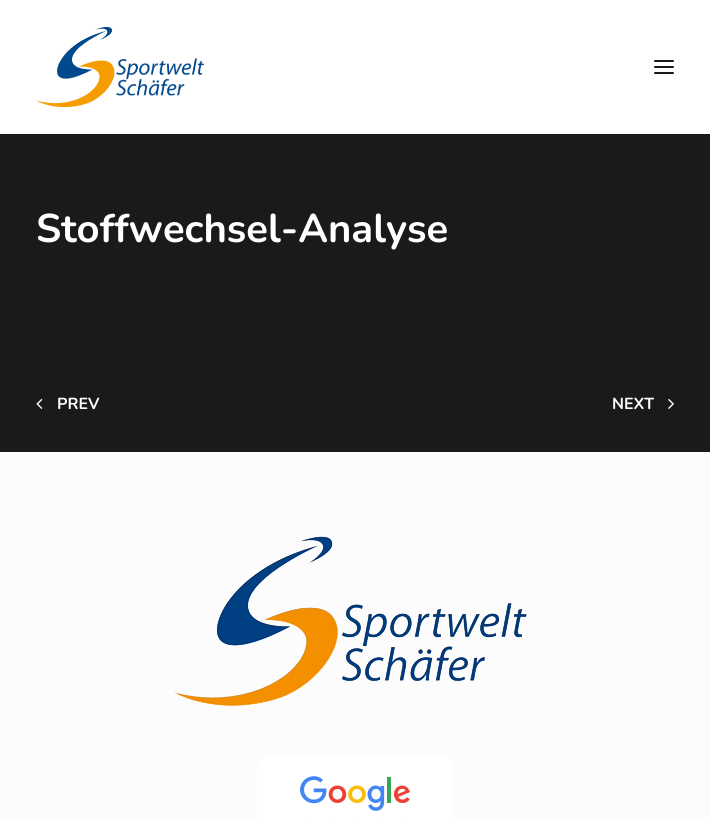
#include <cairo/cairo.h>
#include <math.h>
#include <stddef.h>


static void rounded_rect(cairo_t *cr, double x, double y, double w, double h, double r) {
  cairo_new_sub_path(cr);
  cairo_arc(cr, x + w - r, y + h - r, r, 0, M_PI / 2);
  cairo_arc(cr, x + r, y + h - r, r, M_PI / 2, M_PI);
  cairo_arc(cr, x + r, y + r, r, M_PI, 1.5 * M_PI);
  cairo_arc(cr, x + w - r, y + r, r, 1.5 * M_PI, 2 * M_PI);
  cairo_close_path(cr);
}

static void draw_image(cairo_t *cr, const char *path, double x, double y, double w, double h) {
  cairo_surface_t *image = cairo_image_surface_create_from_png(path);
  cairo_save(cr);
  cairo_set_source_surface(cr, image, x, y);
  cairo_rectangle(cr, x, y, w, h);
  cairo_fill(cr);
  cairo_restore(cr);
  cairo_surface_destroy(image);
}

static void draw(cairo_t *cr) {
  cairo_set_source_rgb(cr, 26 / 255.0, 26 / 255.0, 29 / 255.0);
  cairo_paint(cr);
  cairo_set_source_rgb(cr, 1, 1, 1);
  cairo_rectangle(cr, 0, 0, 710, 134);
  cairo_fill(cr);
  draw_image(cr, "images/1.png", 36, 27, 168, 80);
  cairo_set_source_rgb(cr, 26 / 255.0, 26 / 255.0, 29 / 255.0);
  rounded_rect(cr, 654, 66, 20, 2, 1);
  cairo_fill(cr);
  rounded_rect(cr, 654, 60, 20, 2, 1);
  cairo_fill(cr);
  rounded_rect(cr, 654, 72, 20, 2, 1);
  cairo_fill(cr);
  draw_image(cr, "images/2.png", 36, 398, 7, 11);
  draw_image(cr, "images/3.png", 668, 399, 6, 10);
  cairo_set_source_rgb(cr, 252 / 255.0, 252 / 255.0, 252 / 255.0);
  cairo_rectangle(cr, 0, 452, 710, 366);
  cairo_fill(cr);
  draw_image(cr, "images/4.png", 174, 536, 353, 170);
  cairo_set_source_rgb(cr, 1, 1, 1);
  rounded_rect(cr, 257, 754, 196, 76, 12);
  cairo_fill(cr);
  draw_image(cr, "images/5.png", 300, 776, 110, 35);
  draw_image(cr, "images/6.png", 308, 817, 2, 1);
  draw_image(cr, "images/6.png", 331, 817, 2, 1);
  draw_image(cr, "images/6.png", 354, 817, 2, 1);
  draw_image(cr, "images/6.png", 377, 817, 2, 1);
  cairo_set_source_rgb(cr, 250 / 255.0, 243 / 255.0, 219 / 255.0);
  cairo_rectangle(cr, 400, 817, 1, 1);
  cairo_fill(cr);
  cairo_select_font_face(cr, "Nunito", CAIRO_FONT_SLANT_NORMAL, CAIRO_FONT_WEIGHT_BOLD);
  cairo_set_font_size(cr, 40);
  cairo_set_source_rgb(cr, 1, 1, 1);
  cairo_move_to(cr, 36, 242);
  cairo_show_text(cr, "Stoffwechsel-Analyse");
  cairo_set_font_size(cr, 16);
  cairo_move_to(cr, 57, 409);
  cairo_show_text(cr, "PREV");
  cairo_move_to(cr, 612, 409);
  cairo_show_text(cr, "NEXT");
}

int main(void) {
  cairo_surface_t *surface = cairo_image_surface_create(CAIRO_FORMAT_RGB24, 710, 818);
  cairo_t *cr = cairo_create(surface);
  cairo_font_options_t *options = cairo_font_options_create();
  cairo_font_options_set_hint_metrics(options, CAIRO_HINT_METRICS_OFF);
  cairo_font_options_set_hint_style(options, CAIRO_HINT_STYLE_NONE);
  cairo_set_font_options(cr, options);
  cairo_set_miter_limit(cr, 4);
  draw(cr);
  cairo_surface_write_to_png(surface, "out.png");
  cairo_font_options_destroy(options);
  cairo_destroy(cr);
  cairo_surface_destroy(surface);
  return 0;
}
